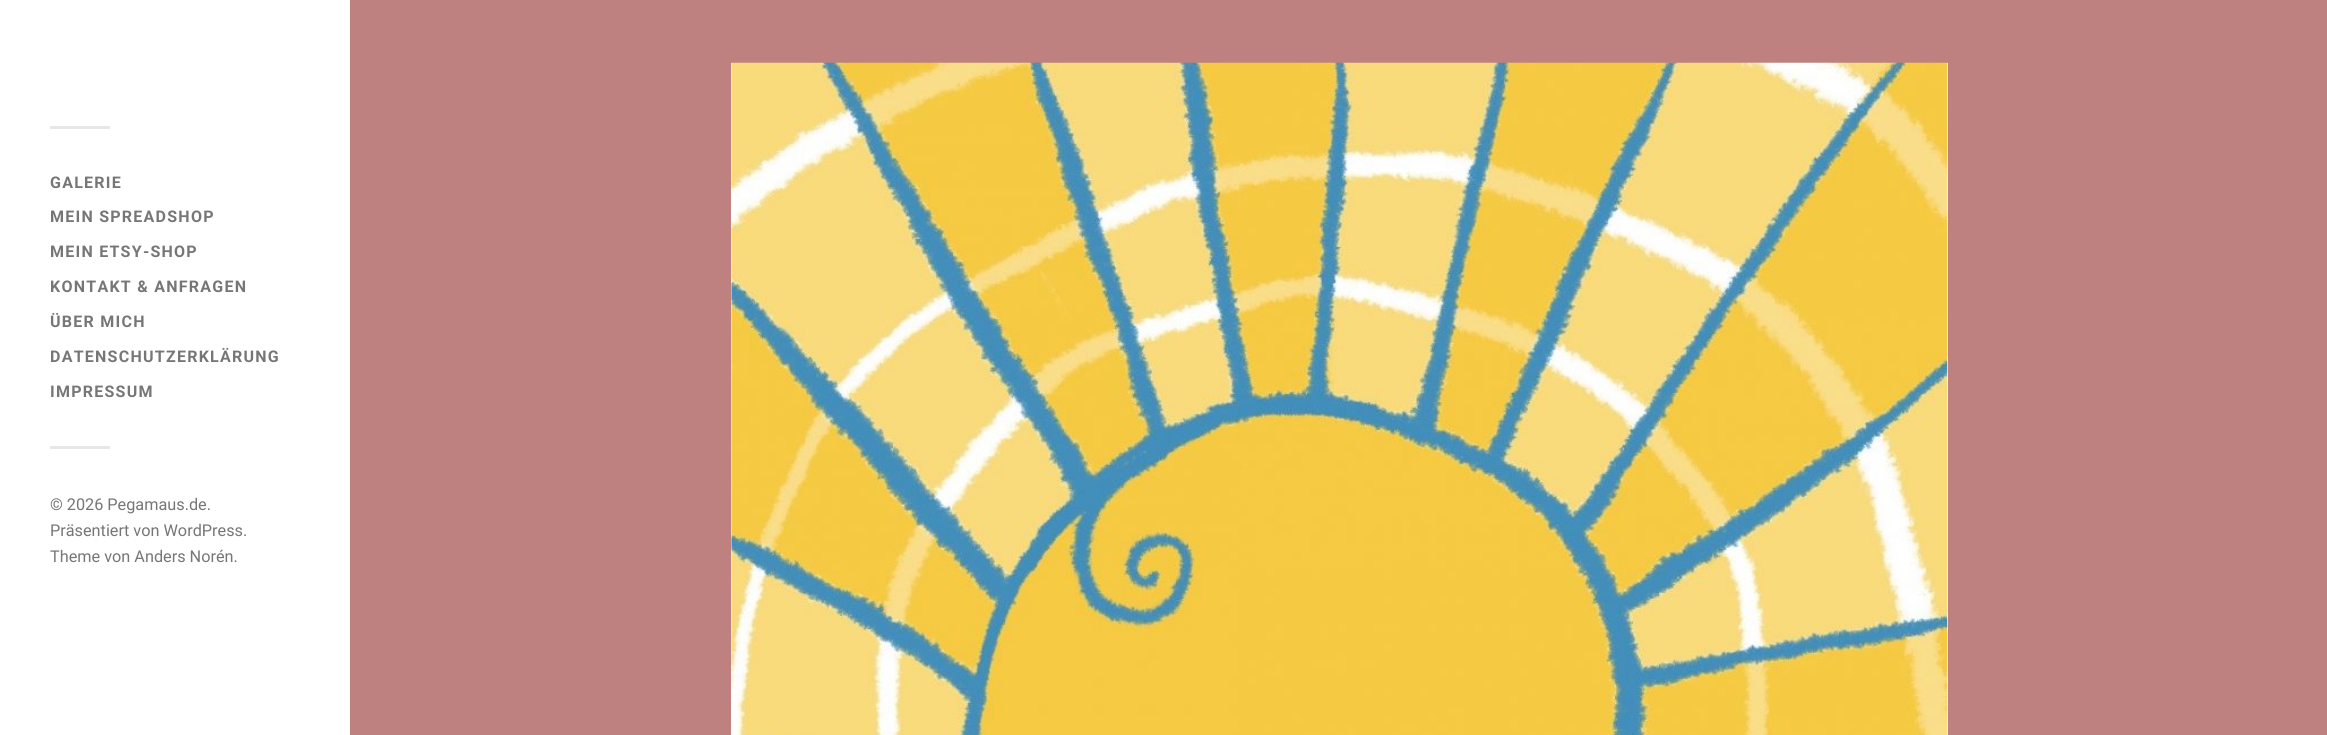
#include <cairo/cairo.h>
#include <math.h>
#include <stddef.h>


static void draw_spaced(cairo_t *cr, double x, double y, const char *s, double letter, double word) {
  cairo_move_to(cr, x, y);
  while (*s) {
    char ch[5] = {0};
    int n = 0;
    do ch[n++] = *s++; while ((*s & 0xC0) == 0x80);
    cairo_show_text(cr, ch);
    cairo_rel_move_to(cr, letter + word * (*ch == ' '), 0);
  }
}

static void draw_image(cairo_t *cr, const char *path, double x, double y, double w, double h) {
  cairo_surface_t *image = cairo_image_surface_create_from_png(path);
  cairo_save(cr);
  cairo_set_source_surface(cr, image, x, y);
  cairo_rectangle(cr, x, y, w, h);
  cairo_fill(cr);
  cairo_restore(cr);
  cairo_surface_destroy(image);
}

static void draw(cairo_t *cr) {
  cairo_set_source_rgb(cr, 190 / 255.0, 129 / 255.0, 128 / 255.0);
  cairo_paint(cr);
  cairo_set_source_rgb(cr, 1, 1, 1);
  cairo_rectangle(cr, 0, 0, 350, 735);
  cairo_fill(cr);
  cairo_set_source_rgb(cr, 231 / 255.0, 231 / 255.0, 231 / 255.0);
  cairo_rectangle(cr, 50, 126, 60, 3);
  cairo_fill(cr);
  cairo_rectangle(cr, 50, 446, 60, 3);
  cairo_fill(cr);
  cairo_set_source_rgb(cr, 1, 1, 1);
  cairo_rectangle(cr, 731, 63, 1217, 672);
  cairo_fill(cr);
  draw_image(cr, "images/1.png", 731, 62, 1217, 673);
  cairo_select_font_face(cr, "Roboto", CAIRO_FONT_SLANT_NORMAL, CAIRO_FONT_WEIGHT_BOLD);
  cairo_set_font_size(cr, 16);
  cairo_set_source_rgb(cr, 118 / 255.0, 118 / 255.0, 118 / 255.0);
  draw_spaced(cr, 50, 188, "GALERIE", 1.25, 0);
  draw_spaced(cr, 50, 222, "MEIN SPREADSHOP", 1.25, 0);
  draw_spaced(cr, 50, 257, "MEIN ETSY-SHOP", 1.25, 0);
  draw_spaced(cr, 50, 292, "KONTAKT & ANFRAGEN", 1.25, 0);
  draw_spaced(cr, 50, 327, "ÜBER MICH", 1.25, 0);
  draw_spaced(cr, 50, 362, "DATENSCHUTZERKLÄRUNG", 1.25, 0);
  draw_spaced(cr, 50, 397, "IMPRESSUM", 1.25, 0);
  cairo_select_font_face(cr, "Roboto", CAIRO_FONT_SLANT_NORMAL, CAIRO_FONT_WEIGHT_NORMAL);
  cairo_set_font_size(cr, 16.25);
  cairo_move_to(cr, 50, 510);
  cairo_show_text(cr, "© 2026 Pegamaus.de.");
  cairo_move_to(cr, 50, 536);
  cairo_show_text(cr, "Präsentiert von WordPress.");
  cairo_move_to(cr, 50, 562);
  cairo_show_text(cr, "Theme von Anders Norén.");
}

int main(void) {
  cairo_surface_t *surface = cairo_image_surface_create(CAIRO_FORMAT_RGB24, 2327, 735);
  cairo_t *cr = cairo_create(surface);
  cairo_font_options_t *options = cairo_font_options_create();
  cairo_font_options_set_hint_metrics(options, CAIRO_HINT_METRICS_OFF);
  cairo_font_options_set_hint_style(options, CAIRO_HINT_STYLE_NONE);
  cairo_set_font_options(cr, options);
  cairo_set_miter_limit(cr, 4);
  draw(cr);
  cairo_surface_write_to_png(surface, "out.png");
  cairo_font_options_destroy(options);
  cairo_destroy(cr);
  cairo_surface_destroy(surface);
  return 0;
}
